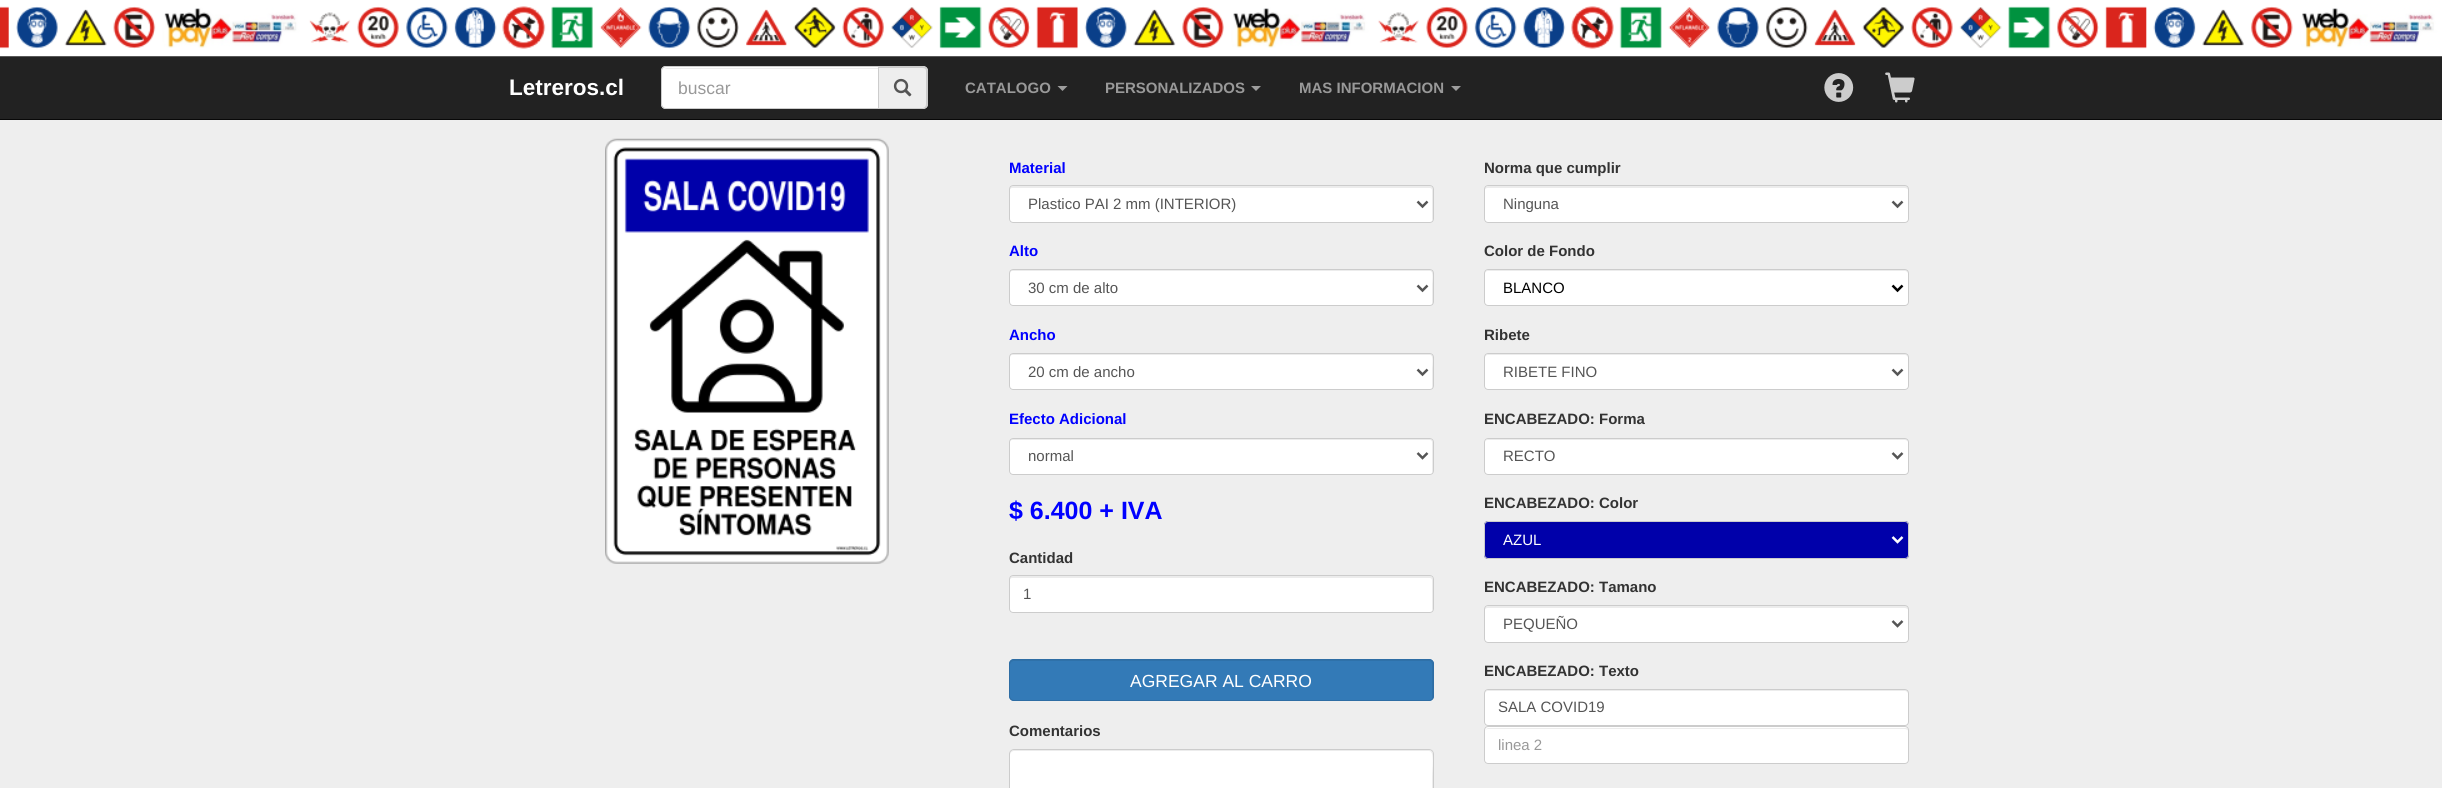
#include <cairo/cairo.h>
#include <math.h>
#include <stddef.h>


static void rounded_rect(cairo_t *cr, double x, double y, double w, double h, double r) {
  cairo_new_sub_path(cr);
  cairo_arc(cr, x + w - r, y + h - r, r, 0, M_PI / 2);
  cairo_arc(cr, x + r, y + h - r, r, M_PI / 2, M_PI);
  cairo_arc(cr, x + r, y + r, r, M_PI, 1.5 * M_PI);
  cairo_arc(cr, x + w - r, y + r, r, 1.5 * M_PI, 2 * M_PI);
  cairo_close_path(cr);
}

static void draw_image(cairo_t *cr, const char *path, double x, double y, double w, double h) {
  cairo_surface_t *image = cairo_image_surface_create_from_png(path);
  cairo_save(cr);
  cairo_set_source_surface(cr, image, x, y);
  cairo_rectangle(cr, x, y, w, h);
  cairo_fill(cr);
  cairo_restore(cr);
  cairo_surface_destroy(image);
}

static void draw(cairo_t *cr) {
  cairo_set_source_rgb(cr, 238 / 255.0, 238 / 255.0, 238 / 255.0);
  cairo_paint(cr);
  cairo_set_source_rgb(cr, 34 / 255.0, 34 / 255.0, 34 / 255.0);
  cairo_rectangle(cr, 0, 56, 2442, 63);
  cairo_fill(cr);
  cairo_set_source_rgb(cr, 8 / 255.0, 8 / 255.0, 8 / 255.0);
  cairo_rectangle(cr, 0, 119, 2442, 1);
  cairo_fill(cr);
  cairo_set_source_rgb(cr, 1, 1, 1);
  cairo_rectangle(cr, 0, 0, 2442, 6);
  cairo_fill(cr);
  draw_image(cr, "images/1.png", 0, 6, 2442, 51);
  cairo_new_path(cr);
  cairo_move_to(cr, 666, 66);
  cairo_line_to(cr, 879, 66);
  cairo_line_to(cr, 879, 109);
  cairo_line_to(cr, 666, 109);
  cairo_curve_to(cr, 663, 109, 661, 107, 661, 104);
  cairo_line_to(cr, 661, 71);
  cairo_curve_to(cr, 661, 68, 663, 66, 666, 66);
  cairo_close_path(cr);
  cairo_fill(cr);
  cairo_set_source_rgb(cr, 236 / 255.0, 236 / 255.0, 236 / 255.0);
  cairo_new_path(cr);
  cairo_move_to(cr, 666, 69);
  cairo_line_to(cr, 878, 69);
  cairo_line_to(cr, 878, 68);
  cairo_line_to(cr, 667, 68);
  cairo_curve_to(cr, 666, 68, 665, 69, 664, 69);
  cairo_close_path(cr);
  cairo_fill(cr);
  cairo_new_path(cr);
  cairo_move_to(cr, 666, 66.5);
  cairo_line_to(cr, 878.5, 66.5);
  cairo_line_to(cr, 878.5, 108.5);
  cairo_line_to(cr, 666, 108.5);
  cairo_curve_to(cr, 663.5, 108.5, 661.5, 106.5, 661.5, 104);
  cairo_line_to(cr, 661.5, 71);
  cairo_curve_to(cr, 661.5, 68.5, 663.5, 66.5, 666, 66.5);
  cairo_close_path(cr);
  cairo_set_source_rgb(cr, 204 / 255.0, 204 / 255.0, 204 / 255.0);
  cairo_set_line_width(cr, 1);
  cairo_stroke(cr);
  cairo_set_source_rgb(cr, 238 / 255.0, 238 / 255.0, 238 / 255.0);
  cairo_new_path(cr);
  cairo_move_to(cr, 879, 66);
  cairo_line_to(cr, 923, 66);
  cairo_curve_to(cr, 926, 66, 928, 68, 928, 71);
  cairo_line_to(cr, 928, 104);
  cairo_curve_to(cr, 928, 107, 926, 109, 923, 109);
  cairo_line_to(cr, 879, 109);
  cairo_close_path(cr);
  cairo_fill(cr);
  cairo_set_source_rgb(cr, 204 / 255.0, 204 / 255.0, 204 / 255.0);
  cairo_set_fill_rule(cr, CAIRO_FILL_RULE_EVEN_ODD);
  cairo_new_path(cr);
  cairo_move_to(cr, 879, 66);
  cairo_line_to(cr, 922, 66);
  cairo_curve_to(cr, 925, 66, 928, 68, 928, 71);
  cairo_line_to(cr, 928, 104);
  cairo_curve_to(cr, 928, 107, 925, 109, 922, 109);
  cairo_line_to(cr, 879, 109);
  cairo_close_path(cr);
  cairo_move_to(cr, 879, 68);
  cairo_line_to(cr, 922, 68);
  cairo_curve_to(cr, 925, 68, 926, 69, 926, 71);
  cairo_line_to(cr, 926, 104);
  cairo_curve_to(cr, 926, 106, 925, 108, 922, 108);
  cairo_line_to(cr, 879, 108);
  cairo_close_path(cr);
  cairo_fill(cr);
  draw_image(cr, "images/2.png", 893, 78, 19, 19);
  cairo_set_source_rgb(cr, 157 / 255.0, 157 / 255.0, 157 / 255.0);
  cairo_set_fill_rule(cr, CAIRO_FILL_RULE_WINDING);
  cairo_new_path(cr);
  cairo_move_to(cr, 1057.5, 86);
  cairo_line_to(cr, 1067.5, 86);
  cairo_line_to(cr, 1062.5, 91);
  cairo_close_path(cr);
  cairo_fill(cr);
  cairo_new_path(cr);
  cairo_move_to(cr, 1251, 86);
  cairo_line_to(cr, 1261, 86);
  cairo_line_to(cr, 1256, 91);
  cairo_close_path(cr);
  cairo_fill(cr);
  cairo_new_path(cr);
  cairo_move_to(cr, 1451, 86);
  cairo_line_to(cr, 1461, 86);
  cairo_line_to(cr, 1456, 91);
  cairo_close_path(cr);
  cairo_fill(cr);
  draw_image(cr, "images/3.png", 1824, 73, 30, 29);
  draw_image(cr, "images/4.png", 1885, 72, 30, 31);
  draw_image(cr, "images/5.png", 605, 138, 284, 426);
  cairo_set_source_rgb(cr, 1, 1, 1);
  rounded_rect(cr, 1009, 185, 425, 38, 4);
  cairo_fill(cr);
  cairo_set_source_rgb(cr, 236 / 255.0, 236 / 255.0, 236 / 255.0);
  cairo_new_path(cr);
  cairo_move_to(cr, 1012, 188);
  cairo_line_to(cr, 1430, 188);
  cairo_curve_to(cr, 1431, 188, 1432, 189, 1432, 190);
  cairo_line_to(cr, 1432, 221);
  cairo_line_to(cr, 1433, 219);
  cairo_curve_to(cr, 1433, 217, 1433, 188, 1433, 187);
  cairo_line_to(cr, 1431, 186);
  cairo_line_to(cr, 1012, 186);
  cairo_curve_to(cr, 1010, 186, 1010, 188, 1010, 190);
  cairo_curve_to(cr, 1010, 189, 1011, 188, 1012, 188);
  cairo_close_path(cr);
  cairo_fill(cr);
  rounded_rect(cr, 1009.5, 185.5, 424, 37, 3.5);
  cairo_set_source_rgb(cr, 204 / 255.0, 204 / 255.0, 204 / 255.0);
  cairo_stroke(cr);
  cairo_new_path(cr);
  cairo_move_to(cr, 1417.5, 201.5);
  cairo_line_to(cr, 1422.5, 206.5);
  cairo_line_to(cr, 1427.5, 201.5);
  cairo_set_source_rgb(cr, 85 / 255.0, 85 / 255.0, 85 / 255.0);
  cairo_set_line_width(cr, 2.5);
  cairo_stroke(cr);
  cairo_set_source_rgb(cr, 1, 1, 1);
  rounded_rect(cr, 1009, 269, 425, 37, 4);
  cairo_fill(cr);
  cairo_set_source_rgb(cr, 236 / 255.0, 236 / 255.0, 236 / 255.0);
  cairo_new_path(cr);
  cairo_move_to(cr, 1012, 271);
  cairo_line_to(cr, 1430, 271);
  cairo_curve_to(cr, 1434, 271, 1432, 283, 1432, 284);
  cairo_line_to(cr, 1432, 305);
  cairo_line_to(cr, 1433, 303);
  cairo_curve_to(cr, 1433, 301, 1433, 272, 1433, 271);
  cairo_line_to(cr, 1431, 270);
  cairo_line_to(cr, 1012, 270);
  cairo_curve_to(cr, 1010, 270, 1010, 272, 1010, 274);
  cairo_curve_to(cr, 1010, 272, 1011, 271, 1012, 271);
  cairo_close_path(cr);
  cairo_fill(cr);
  rounded_rect(cr, 1009.5, 269.5, 424, 36, 3.5);
  cairo_set_source_rgb(cr, 204 / 255.0, 204 / 255.0, 204 / 255.0);
  cairo_set_line_width(cr, 1);
  cairo_stroke(cr);
  cairo_new_path(cr);
  cairo_move_to(cr, 1417.5, 285.5);
  cairo_line_to(cr, 1422.5, 290.5);
  cairo_line_to(cr, 1427.5, 285.5);
  cairo_set_source_rgb(cr, 85 / 255.0, 85 / 255.0, 85 / 255.0);
  cairo_set_line_width(cr, 2.5);
  cairo_stroke(cr);
  cairo_set_source_rgb(cr, 1, 1, 1);
  rounded_rect(cr, 1009, 353, 425, 37, 4);
  cairo_fill(cr);
  cairo_set_source_rgb(cr, 236 / 255.0, 236 / 255.0, 236 / 255.0);
  cairo_new_path(cr);
  cairo_move_to(cr, 1012, 355);
  cairo_line_to(cr, 1430, 355);
  cairo_curve_to(cr, 1434, 355, 1432, 367, 1432, 368);
  cairo_line_to(cr, 1432, 389);
  cairo_line_to(cr, 1433, 387);
  cairo_curve_to(cr, 1433, 385, 1433, 356, 1433, 355);
  cairo_line_to(cr, 1431, 354);
  cairo_line_to(cr, 1012, 354);
  cairo_curve_to(cr, 1010, 354, 1010, 356, 1010, 358);
  cairo_curve_to(cr, 1010, 356, 1011, 355, 1012, 355);
  cairo_close_path(cr);
  cairo_fill(cr);
  rounded_rect(cr, 1009.5, 353.5, 424, 36, 3.5);
  cairo_set_source_rgb(cr, 204 / 255.0, 204 / 255.0, 204 / 255.0);
  cairo_set_line_width(cr, 1);
  cairo_stroke(cr);
  cairo_new_path(cr);
  cairo_move_to(cr, 1417.5, 369.5);
  cairo_line_to(cr, 1422.5, 374.5);
  cairo_line_to(cr, 1427.5, 369.5);
  cairo_set_source_rgb(cr, 85 / 255.0, 85 / 255.0, 85 / 255.0);
  cairo_set_line_width(cr, 2.5);
  cairo_stroke(cr);
  cairo_set_source_rgb(cr, 1, 1, 1);
  rounded_rect(cr, 1009, 438, 425, 37, 4);
  cairo_fill(cr);
  cairo_set_source_rgb(cr, 236 / 255.0, 236 / 255.0, 236 / 255.0);
  cairo_new_path(cr);
  cairo_move_to(cr, 1012, 440);
  cairo_line_to(cr, 1430, 440);
  cairo_curve_to(cr, 1431, 440, 1432, 441, 1432, 442);
  cairo_line_to(cr, 1432, 474);
  cairo_curve_to(cr, 1432, 473, 1433, 472, 1433, 472);
  cairo_line_to(cr, 1433, 442);
  cairo_curve_to(cr, 1433, 440, 1432, 439, 1430, 439);
  cairo_line_to(cr, 1012, 439);
  cairo_curve_to(cr, 1011, 439, 1010, 440, 1010, 442);
  cairo_curve_to(cr, 1010, 441, 1011, 440, 1012, 440);
  cairo_close_path(cr);
  cairo_fill(cr);
  rounded_rect(cr, 1009.5, 438.5, 424, 36, 3.5);
  cairo_set_source_rgb(cr, 204 / 255.0, 204 / 255.0, 204 / 255.0);
  cairo_set_line_width(cr, 1);
  cairo_stroke(cr);
  cairo_new_path(cr);
  cairo_move_to(cr, 1417.5, 453);
  cairo_line_to(cr, 1422.5, 458);
  cairo_line_to(cr, 1427.5, 453);
  cairo_set_source_rgb(cr, 85 / 255.0, 85 / 255.0, 85 / 255.0);
  cairo_set_line_width(cr, 2.5);
  cairo_stroke(cr);
  cairo_set_source_rgb(cr, 1, 1, 1);
  rounded_rect(cr, 1009, 575, 425, 38, 4);
  cairo_fill(cr);
  cairo_set_source_rgb(cr, 236 / 255.0, 236 / 255.0, 236 / 255.0);
  cairo_new_path(cr);
  cairo_move_to(cr, 1012, 578);
  cairo_line_to(cr, 1430, 578);
  cairo_curve_to(cr, 1431, 578, 1432, 579, 1432, 580);
  cairo_line_to(cr, 1432, 611);
  cairo_line_to(cr, 1433, 609);
  cairo_line_to(cr, 1433, 578);
  cairo_line_to(cr, 1431, 576);
  cairo_line_to(cr, 1012, 576);
  cairo_curve_to(cr, 1010, 576, 1010, 578, 1010, 580);
  cairo_curve_to(cr, 1010, 579, 1011, 578, 1012, 578);
  cairo_close_path(cr);
  cairo_fill(cr);
  rounded_rect(cr, 1009.5, 575.5, 424, 37, 3.5);
  cairo_set_source_rgb(cr, 204 / 255.0, 204 / 255.0, 204 / 255.0);
  cairo_set_line_width(cr, 1);
  cairo_stroke(cr);
  cairo_set_source_rgb(cr, 51 / 255.0, 122 / 255.0, 183 / 255.0);
  rounded_rect(cr, 1009, 659, 425, 42, 5);
  cairo_fill(cr);
  cairo_set_source_rgb(cr, 47 / 255.0, 113 / 255.0, 169 / 255.0);
  cairo_new_path(cr);
  cairo_move_to(cr, 1014, 661);
  cairo_line_to(cr, 1429, 661);
  cairo_curve_to(cr, 1431, 661, 1432, 663, 1432, 665);
  cairo_line_to(cr, 1432, 699);
  cairo_curve_to(cr, 1433, 698, 1433, 697, 1433, 696);
  cairo_line_to(cr, 1433, 664);
  cairo_curve_to(cr, 1433, 662, 1431, 660, 1429, 660);
  cairo_line_to(cr, 1014, 660);
  cairo_curve_to(cr, 1012, 660, 1010, 662, 1010, 664);
  cairo_line_to(cr, 1010, 665);
  cairo_curve_to(cr, 1010, 663, 1012, 661, 1014, 661);
  cairo_close_path(cr);
  cairo_fill(cr);
  rounded_rect(cr, 1009.5, 659.5, 424, 41, 4.5);
  cairo_set_source_rgb(cr, 46 / 255.0, 109 / 255.0, 164 / 255.0);
  cairo_stroke(cr);
  cairo_set_source_rgb(cr, 1, 1, 1);
  rounded_rect(cr, 1009, 749, 425, 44, 5);
  cairo_fill(cr);
  cairo_set_source_rgb(cr, 236 / 255.0, 236 / 255.0, 236 / 255.0);
  cairo_new_path(cr);
  cairo_move_to(cr, 1014, 751);
  cairo_line_to(cr, 1429, 751);
  cairo_curve_to(cr, 1435, 751, 1432, 769, 1432, 777);
  cairo_line_to(cr, 1432, 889);
  cairo_curve_to(cr, 1433, 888, 1433, 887, 1433, 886);
  cairo_line_to(cr, 1433, 754);
  cairo_curve_to(cr, 1433, 752, 1431, 750, 1429, 750);
  cairo_line_to(cr, 1014, 750);
  cairo_curve_to(cr, 1012, 750, 1010, 752, 1010, 754);
  cairo_line_to(cr, 1010, 755);
  cairo_curve_to(cr, 1010, 753, 1012, 751, 1014, 751);
  cairo_close_path(cr);
  cairo_fill(cr);
  rounded_rect(cr, 1009.5, 749.5, 424, 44, 4.5);
  cairo_set_source_rgb(cr, 204 / 255.0, 204 / 255.0, 204 / 255.0);
  cairo_stroke(cr);
  cairo_set_source_rgb(cr, 1, 1, 1);
  rounded_rect(cr, 1484, 185, 425, 38, 4);
  cairo_fill(cr);
  cairo_set_source_rgb(cr, 236 / 255.0, 236 / 255.0, 236 / 255.0);
  cairo_new_path(cr);
  cairo_move_to(cr, 1488, 188);
  cairo_line_to(cr, 1905, 188);
  cairo_curve_to(cr, 1906, 188, 1908, 189, 1908, 190);
  cairo_curve_to(cr, 1908, 188, 1908, 186, 1906, 186);
  cairo_line_to(cr, 1488, 186);
  cairo_line_to(cr, 1485, 187);
  cairo_line_to(cr, 1485, 190);
  cairo_curve_to(cr, 1485, 189, 1486, 188, 1488, 188);
  cairo_close_path(cr);
  cairo_fill(cr);
  rounded_rect(cr, 1484.5, 185.5, 424, 37, 3.5);
  cairo_set_source_rgb(cr, 204 / 255.0, 204 / 255.0, 204 / 255.0);
  cairo_stroke(cr);
  cairo_new_path(cr);
  cairo_move_to(cr, 1892.5, 201.5);
  cairo_line_to(cr, 1897.5, 206.5);
  cairo_line_to(cr, 1902.5, 201.5);
  cairo_set_source_rgb(cr, 85 / 255.0, 85 / 255.0, 85 / 255.0);
  cairo_set_line_width(cr, 2.5);
  cairo_stroke(cr);
  cairo_set_source_rgb(cr, 1, 1, 1);
  rounded_rect(cr, 1484, 269, 425, 37, 4);
  cairo_fill(cr);
  cairo_set_source_rgb(cr, 236 / 255.0, 236 / 255.0, 236 / 255.0);
  cairo_new_path(cr);
  cairo_move_to(cr, 1488, 271);
  cairo_line_to(cr, 1905, 271);
  cairo_curve_to(cr, 1906, 271, 1908, 272, 1908, 274);
  cairo_curve_to(cr, 1908, 272, 1908, 270, 1906, 270);
  cairo_line_to(cr, 1488, 270);
  cairo_line_to(cr, 1485, 271);
  cairo_line_to(cr, 1485, 274);
  cairo_curve_to(cr, 1485, 272, 1486, 271, 1488, 271);
  cairo_close_path(cr);
  cairo_fill(cr);
  rounded_rect(cr, 1484.5, 269.5, 424, 36, 3.5);
  cairo_set_source_rgb(cr, 204 / 255.0, 204 / 255.0, 204 / 255.0);
  cairo_set_line_width(cr, 1);
  cairo_stroke(cr);
  cairo_new_path(cr);
  cairo_move_to(cr, 1892.5, 285.5);
  cairo_line_to(cr, 1897.5, 290.5);
  cairo_line_to(cr, 1902.5, 285.5);
  cairo_set_source_rgb(cr, 0, 0, 0);
  cairo_set_line_width(cr, 2.5);
  cairo_stroke(cr);
  cairo_set_source_rgb(cr, 1, 1, 1);
  rounded_rect(cr, 1484, 353, 425, 37, 4);
  cairo_fill(cr);
  cairo_set_source_rgb(cr, 236 / 255.0, 236 / 255.0, 236 / 255.0);
  cairo_new_path(cr);
  cairo_move_to(cr, 1488, 355);
  cairo_line_to(cr, 1905, 355);
  cairo_curve_to(cr, 1906, 355, 1908, 356, 1908, 358);
  cairo_curve_to(cr, 1908, 356, 1908, 354, 1906, 354);
  cairo_line_to(cr, 1488, 354);
  cairo_line_to(cr, 1485, 355);
  cairo_line_to(cr, 1485, 358);
  cairo_curve_to(cr, 1485, 356, 1486, 355, 1488, 355);
  cairo_close_path(cr);
  cairo_fill(cr);
  rounded_rect(cr, 1484.5, 353.5, 424, 36, 3.5);
  cairo_set_source_rgb(cr, 204 / 255.0, 204 / 255.0, 204 / 255.0);
  cairo_set_line_width(cr, 1);
  cairo_stroke(cr);
  cairo_new_path(cr);
  cairo_move_to(cr, 1892.5, 369.5);
  cairo_line_to(cr, 1897.5, 374.5);
  cairo_line_to(cr, 1902.5, 369.5);
  cairo_set_source_rgb(cr, 85 / 255.0, 85 / 255.0, 85 / 255.0);
  cairo_set_line_width(cr, 2.5);
  cairo_stroke(cr);
  cairo_set_source_rgb(cr, 1, 1, 1);
  rounded_rect(cr, 1484, 438, 425, 37, 4);
  cairo_fill(cr);
  cairo_set_source_rgb(cr, 236 / 255.0, 236 / 255.0, 236 / 255.0);
  cairo_new_path(cr);
  cairo_move_to(cr, 1488, 440);
  cairo_line_to(cr, 1905, 440);
  cairo_curve_to(cr, 1906, 440, 1908, 441, 1908, 442);
  cairo_curve_to(cr, 1908, 440, 1907, 439, 1906, 439);
  cairo_line_to(cr, 1488, 439);
  cairo_line_to(cr, 1486, 440);
  cairo_line_to(cr, 1485, 442);
  cairo_curve_to(cr, 1485, 441, 1486, 440, 1488, 440);
  cairo_close_path(cr);
  cairo_fill(cr);
  rounded_rect(cr, 1484.5, 438.5, 424, 36, 3.5);
  cairo_set_source_rgb(cr, 204 / 255.0, 204 / 255.0, 204 / 255.0);
  cairo_set_line_width(cr, 1);
  cairo_stroke(cr);
  cairo_new_path(cr);
  cairo_move_to(cr, 1892.5, 453);
  cairo_line_to(cr, 1897.5, 458);
  cairo_line_to(cr, 1902.5, 453);
  cairo_set_source_rgb(cr, 85 / 255.0, 85 / 255.0, 85 / 255.0);
  cairo_set_line_width(cr, 2.5);
  cairo_stroke(cr);
  cairo_set_source_rgb(cr, 0, 0, 170 / 255.0);
  rounded_rect(cr, 1484, 521, 425, 38, 4);
  cairo_fill(cr);
  cairo_set_source_rgb(cr, 0, 0, 157 / 255.0);
  cairo_new_path(cr);
  cairo_move_to(cr, 1488, 524);
  cairo_line_to(cr, 1905, 524);
  cairo_curve_to(cr, 1906, 524, 1908, 525, 1908, 526);
  cairo_curve_to(cr, 1908, 524, 1907, 523, 1906, 523);
  cairo_line_to(cr, 1488, 523);
  cairo_line_to(cr, 1486, 524);
  cairo_line_to(cr, 1485, 526);
  cairo_curve_to(cr, 1485, 525, 1486, 524, 1488, 524);
  cairo_close_path(cr);
  cairo_fill(cr);
  rounded_rect(cr, 1484.5, 521.5, 424, 37, 3.5);
  cairo_set_source_rgb(cr, 204 / 255.0, 204 / 255.0, 204 / 255.0);
  cairo_set_line_width(cr, 1);
  cairo_stroke(cr);
  cairo_new_path(cr);
  cairo_move_to(cr, 1892.5, 537);
  cairo_line_to(cr, 1897.5, 542);
  cairo_line_to(cr, 1902.5, 537);
  cairo_set_source_rgb(cr, 1, 1, 1);
  cairo_set_line_width(cr, 2.5);
  cairo_stroke(cr);
  rounded_rect(cr, 1484, 605, 425, 38, 4);
  cairo_fill(cr);
  cairo_set_source_rgb(cr, 236 / 255.0, 236 / 255.0, 236 / 255.0);
  cairo_new_path(cr);
  cairo_move_to(cr, 1488, 608);
  cairo_line_to(cr, 1905, 608);
  cairo_curve_to(cr, 1906, 608, 1908, 609, 1908, 610);
  cairo_curve_to(cr, 1908, 608, 1908, 606, 1906, 606);
  cairo_line_to(cr, 1488, 606);
  cairo_line_to(cr, 1485, 607);
  cairo_line_to(cr, 1485, 610);
  cairo_curve_to(cr, 1485, 609, 1486, 608, 1488, 608);
  cairo_close_path(cr);
  cairo_fill(cr);
  rounded_rect(cr, 1484.5, 605.5, 424, 37, 3.5);
  cairo_set_source_rgb(cr, 204 / 255.0, 204 / 255.0, 204 / 255.0);
  cairo_set_line_width(cr, 1);
  cairo_stroke(cr);
  cairo_new_path(cr);
  cairo_move_to(cr, 1892.5, 621);
  cairo_line_to(cr, 1897.5, 626);
  cairo_line_to(cr, 1902.5, 621);
  cairo_set_source_rgb(cr, 85 / 255.0, 85 / 255.0, 85 / 255.0);
  cairo_set_line_width(cr, 2.5);
  cairo_stroke(cr);
  cairo_set_source_rgb(cr, 1, 1, 1);
  rounded_rect(cr, 1484, 689, 425, 37, 4);
  cairo_fill(cr);
  cairo_set_source_rgb(cr, 236 / 255.0, 236 / 255.0, 236 / 255.0);
  cairo_new_path(cr);
  cairo_move_to(cr, 1488, 691);
  cairo_line_to(cr, 1905, 691);
  cairo_curve_to(cr, 1906, 691, 1908, 692, 1908, 694);
  cairo_curve_to(cr, 1908, 692, 1908, 690, 1906, 690);
  cairo_line_to(cr, 1488, 690);
  cairo_line_to(cr, 1485, 691);
  cairo_line_to(cr, 1485, 694);
  cairo_curve_to(cr, 1485, 692, 1486, 691, 1488, 691);
  cairo_close_path(cr);
  cairo_fill(cr);
  rounded_rect(cr, 1484.5, 689.5, 424, 36, 3.5);
  cairo_set_source_rgb(cr, 204 / 255.0, 204 / 255.0, 204 / 255.0);
  cairo_set_line_width(cr, 1);
  cairo_stroke(cr);
  cairo_set_source_rgb(cr, 1, 1, 1);
  rounded_rect(cr, 1484, 726, 425, 38, 4);
  cairo_fill(cr);
  cairo_set_source_rgb(cr, 236 / 255.0, 236 / 255.0, 236 / 255.0);
  cairo_new_path(cr);
  cairo_move_to(cr, 1488, 729);
  cairo_line_to(cr, 1905, 729);
  cairo_curve_to(cr, 1906, 729, 1908, 730, 1908, 731);
  cairo_curve_to(cr, 1908, 729, 1907, 728, 1906, 728);
  cairo_line_to(cr, 1488, 728);
  cairo_line_to(cr, 1486, 729);
  cairo_line_to(cr, 1485, 731);
  cairo_curve_to(cr, 1485, 730, 1486, 729, 1488, 729);
  cairo_close_path(cr);
  cairo_fill(cr);
  rounded_rect(cr, 1484.5, 726.5, 424, 37, 3.5);
  cairo_set_source_rgb(cr, 204 / 255.0, 204 / 255.0, 204 / 255.0);
  cairo_stroke(cr);
  cairo_select_font_face(cr, "Liberation Sans", CAIRO_FONT_SLANT_NORMAL, CAIRO_FONT_WEIGHT_BOLD);
  cairo_set_font_size(cr, 22.5);
  cairo_set_source_rgb(cr, 1, 1, 1);
  cairo_move_to(cr, 509, 95);
  cairo_show_text(cr, "Letreros.cl");
  cairo_select_font_face(cr, "Liberation Sans", CAIRO_FONT_SLANT_NORMAL, CAIRO_FONT_WEIGHT_NORMAL);
  cairo_set_font_size(cr, 17.5);
  cairo_set_source_rgb(cr, 153 / 255.0, 153 / 255.0, 153 / 255.0);
  cairo_move_to(cr, 678, 94);
  cairo_show_text(cr, "buscar");
  cairo_select_font_face(cr, "Liberation Sans", CAIRO_FONT_SLANT_NORMAL, CAIRO_FONT_WEIGHT_BOLD);
  cairo_set_font_size(cr, 15);
  cairo_move_to(cr, 965, 93);
  cairo_show_text(cr, "CATALOGO");
  cairo_move_to(cr, 1105, 93);
  cairo_show_text(cr, "PERSONALIZADOS");
  cairo_move_to(cr, 1299, 93);
  cairo_show_text(cr, "MAS INFORMACION");
  cairo_set_source_rgb(cr, 0, 0, 1);
  cairo_move_to(cr, 1009, 173);
  cairo_show_text(cr, "Material");
  cairo_select_font_face(cr, "Liberation Sans", CAIRO_FONT_SLANT_NORMAL, CAIRO_FONT_WEIGHT_NORMAL);
  cairo_set_source_rgb(cr, 85 / 255.0, 85 / 255.0, 85 / 255.0);
  cairo_move_to(cr, 1028, 209);
  cairo_show_text(cr, "Plastico PAI 2 mm (INTERIOR)");
  cairo_select_font_face(cr, "Liberation Sans", CAIRO_FONT_SLANT_NORMAL, CAIRO_FONT_WEIGHT_BOLD);
  cairo_set_source_rgb(cr, 0, 0, 1);
  cairo_move_to(cr, 1009, 256);
  cairo_show_text(cr, "Alto");
  cairo_select_font_face(cr, "Liberation Sans", CAIRO_FONT_SLANT_NORMAL, CAIRO_FONT_WEIGHT_NORMAL);
  cairo_set_source_rgb(cr, 85 / 255.0, 85 / 255.0, 85 / 255.0);
  cairo_move_to(cr, 1028, 293);
  cairo_show_text(cr, "30 cm de alto");
  cairo_select_font_face(cr, "Liberation Sans", CAIRO_FONT_SLANT_NORMAL, CAIRO_FONT_WEIGHT_BOLD);
  cairo_set_source_rgb(cr, 0, 0, 1);
  cairo_move_to(cr, 1009, 340);
  cairo_show_text(cr, "Ancho");
  cairo_select_font_face(cr, "Liberation Sans", CAIRO_FONT_SLANT_NORMAL, CAIRO_FONT_WEIGHT_NORMAL);
  cairo_set_source_rgb(cr, 85 / 255.0, 85 / 255.0, 85 / 255.0);
  cairo_move_to(cr, 1028, 377);
  cairo_show_text(cr, "20 cm de ancho");
  cairo_select_font_face(cr, "Liberation Sans", CAIRO_FONT_SLANT_NORMAL, CAIRO_FONT_WEIGHT_BOLD);
  cairo_set_source_rgb(cr, 0, 0, 1);
  cairo_move_to(cr, 1009, 424);
  cairo_show_text(cr, "Efecto Adicional");
  cairo_select_font_face(cr, "Liberation Sans", CAIRO_FONT_SLANT_NORMAL, CAIRO_FONT_WEIGHT_NORMAL);
  cairo_set_source_rgb(cr, 85 / 255.0, 85 / 255.0, 85 / 255.0);
  cairo_move_to(cr, 1028, 461);
  cairo_show_text(cr, "normal");
  cairo_select_font_face(cr, "Liberation Sans", CAIRO_FONT_SLANT_NORMAL, CAIRO_FONT_WEIGHT_BOLD);
  cairo_set_font_size(cr, 25);
  cairo_set_source_rgb(cr, 0, 0, 1);
  cairo_move_to(cr, 1009, 519);
  cairo_show_text(cr, "$ 6.400 + IVA");
  cairo_set_font_size(cr, 15);
  cairo_set_source_rgb(cr, 51 / 255.0, 51 / 255.0, 51 / 255.0);
  cairo_move_to(cr, 1009, 563);
  cairo_show_text(cr, "Cantidad");
  cairo_select_font_face(cr, "Liberation Sans", CAIRO_FONT_SLANT_NORMAL, CAIRO_FONT_WEIGHT_NORMAL);
  cairo_set_source_rgb(cr, 85 / 255.0, 85 / 255.0, 85 / 255.0);
  cairo_move_to(cr, 1023, 599);
  cairo_show_text(cr, "1");
  cairo_set_font_size(cr, 17.5);
  cairo_set_source_rgb(cr, 1, 1, 1);
  cairo_move_to(cr, 1130, 687);
  cairo_show_text(cr, "AGREGAR AL CARRO");
  cairo_select_font_face(cr, "Liberation Sans", CAIRO_FONT_SLANT_NORMAL, CAIRO_FONT_WEIGHT_BOLD);
  cairo_set_font_size(cr, 15);
  cairo_set_source_rgb(cr, 51 / 255.0, 51 / 255.0, 51 / 255.0);
  cairo_move_to(cr, 1009, 736);
  cairo_show_text(cr, "Comentarios");
  cairo_move_to(cr, 1484, 173);
  cairo_show_text(cr, "Norma que cumplir");
  cairo_select_font_face(cr, "Liberation Sans", CAIRO_FONT_SLANT_NORMAL, CAIRO_FONT_WEIGHT_NORMAL);
  cairo_set_source_rgb(cr, 85 / 255.0, 85 / 255.0, 85 / 255.0);
  cairo_move_to(cr, 1503, 209);
  cairo_show_text(cr, "Ninguna");
  cairo_select_font_face(cr, "Liberation Sans", CAIRO_FONT_SLANT_NORMAL, CAIRO_FONT_WEIGHT_BOLD);
  cairo_set_source_rgb(cr, 51 / 255.0, 51 / 255.0, 51 / 255.0);
  cairo_move_to(cr, 1484, 256);
  cairo_show_text(cr, "Color de Fondo");
  cairo_select_font_face(cr, "Liberation Sans", CAIRO_FONT_SLANT_NORMAL, CAIRO_FONT_WEIGHT_NORMAL);
  cairo_set_source_rgb(cr, 0, 0, 0);
  cairo_move_to(cr, 1503, 293);
  cairo_show_text(cr, "BLANCO");
  cairo_select_font_face(cr, "Liberation Sans", CAIRO_FONT_SLANT_NORMAL, CAIRO_FONT_WEIGHT_BOLD);
  cairo_set_source_rgb(cr, 51 / 255.0, 51 / 255.0, 51 / 255.0);
  cairo_move_to(cr, 1484, 340);
  cairo_show_text(cr, "Ribete");
  cairo_select_font_face(cr, "Liberation Sans", CAIRO_FONT_SLANT_NORMAL, CAIRO_FONT_WEIGHT_NORMAL);
  cairo_set_source_rgb(cr, 85 / 255.0, 85 / 255.0, 85 / 255.0);
  cairo_move_to(cr, 1503, 377);
  cairo_show_text(cr, "RIBETE FINO");
  cairo_select_font_face(cr, "Liberation Sans", CAIRO_FONT_SLANT_NORMAL, CAIRO_FONT_WEIGHT_BOLD);
  cairo_set_source_rgb(cr, 51 / 255.0, 51 / 255.0, 51 / 255.0);
  cairo_move_to(cr, 1484, 424);
  cairo_show_text(cr, "ENCABEZADO: Forma");
  cairo_select_font_face(cr, "Liberation Sans", CAIRO_FONT_SLANT_NORMAL, CAIRO_FONT_WEIGHT_NORMAL);
  cairo_set_source_rgb(cr, 85 / 255.0, 85 / 255.0, 85 / 255.0);
  cairo_move_to(cr, 1503, 461);
  cairo_show_text(cr, "RECTO");
  cairo_select_font_face(cr, "Liberation Sans", CAIRO_FONT_SLANT_NORMAL, CAIRO_FONT_WEIGHT_BOLD);
  cairo_set_source_rgb(cr, 51 / 255.0, 51 / 255.0, 51 / 255.0);
  cairo_move_to(cr, 1484, 508);
  cairo_show_text(cr, "ENCABEZADO: Color");
  cairo_select_font_face(cr, "Liberation Sans", CAIRO_FONT_SLANT_NORMAL, CAIRO_FONT_WEIGHT_NORMAL);
  cairo_set_source_rgb(cr, 1, 1, 1);
  cairo_move_to(cr, 1503, 545);
  cairo_show_text(cr, "AZUL");
  cairo_select_font_face(cr, "Liberation Sans", CAIRO_FONT_SLANT_NORMAL, CAIRO_FONT_WEIGHT_BOLD);
  cairo_set_source_rgb(cr, 51 / 255.0, 51 / 255.0, 51 / 255.0);
  cairo_move_to(cr, 1484, 592);
  cairo_show_text(cr, "ENCABEZADO: Tamano");
  cairo_select_font_face(cr, "Liberation Sans", CAIRO_FONT_SLANT_NORMAL, CAIRO_FONT_WEIGHT_NORMAL);
  cairo_set_source_rgb(cr, 85 / 255.0, 85 / 255.0, 85 / 255.0);
  cairo_move_to(cr, 1503, 629);
  cairo_show_text(cr, "PEQUEÑO");
  cairo_select_font_face(cr, "Liberation Sans", CAIRO_FONT_SLANT_NORMAL, CAIRO_FONT_WEIGHT_BOLD);
  cairo_set_source_rgb(cr, 51 / 255.0, 51 / 255.0, 51 / 255.0);
  cairo_move_to(cr, 1484, 676);
  cairo_show_text(cr, "ENCABEZADO: Texto");
  cairo_select_font_face(cr, "Liberation Sans", CAIRO_FONT_SLANT_NORMAL, CAIRO_FONT_WEIGHT_NORMAL);
  cairo_set_source_rgb(cr, 85 / 255.0, 85 / 255.0, 85 / 255.0);
  cairo_move_to(cr, 1498, 712);
  cairo_show_text(cr, "SALA COVID19");
  cairo_set_source_rgb(cr, 153 / 255.0, 153 / 255.0, 153 / 255.0);
  cairo_move_to(cr, 1498, 750);
  cairo_show_text(cr, "linea 2");
}

int main(void) {
  cairo_surface_t *surface = cairo_image_surface_create(CAIRO_FORMAT_RGB24, 2442, 788);
  cairo_t *cr = cairo_create(surface);
  cairo_font_options_t *options = cairo_font_options_create();
  cairo_font_options_set_hint_metrics(options, CAIRO_HINT_METRICS_OFF);
  cairo_font_options_set_hint_style(options, CAIRO_HINT_STYLE_NONE);
  cairo_set_font_options(cr, options);
  cairo_set_miter_limit(cr, 4);
  draw(cr);
  cairo_surface_write_to_png(surface, "out.png");
  cairo_font_options_destroy(options);
  cairo_destroy(cr);
  cairo_surface_destroy(surface);
  return 0;
}
